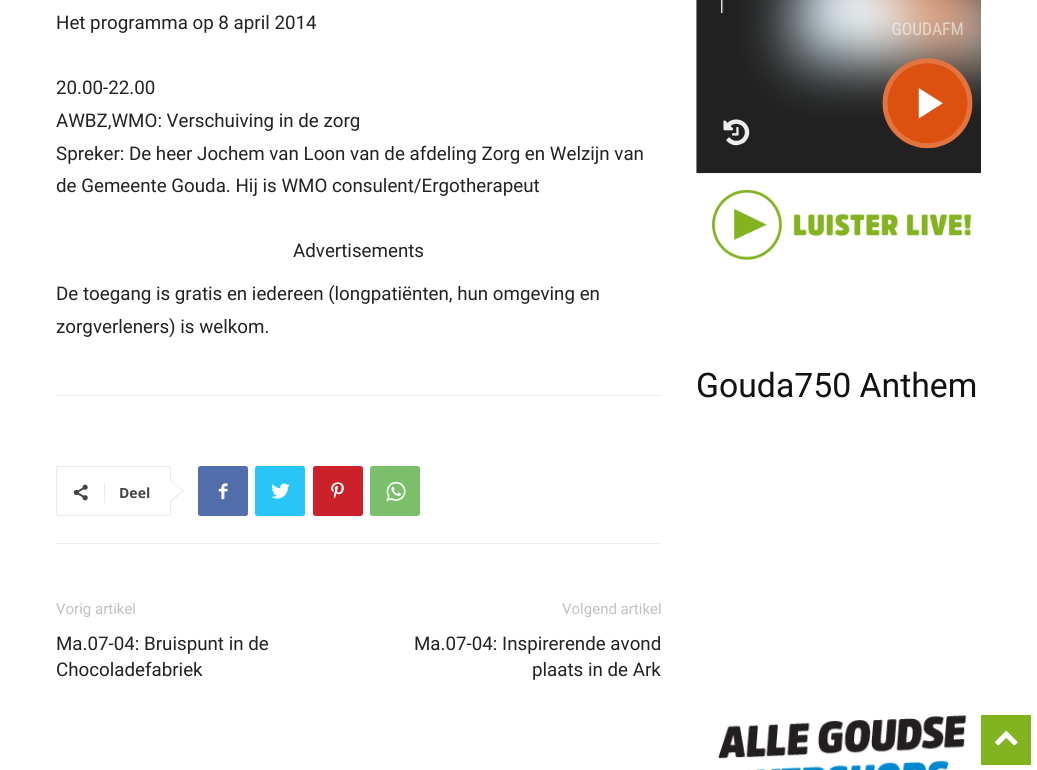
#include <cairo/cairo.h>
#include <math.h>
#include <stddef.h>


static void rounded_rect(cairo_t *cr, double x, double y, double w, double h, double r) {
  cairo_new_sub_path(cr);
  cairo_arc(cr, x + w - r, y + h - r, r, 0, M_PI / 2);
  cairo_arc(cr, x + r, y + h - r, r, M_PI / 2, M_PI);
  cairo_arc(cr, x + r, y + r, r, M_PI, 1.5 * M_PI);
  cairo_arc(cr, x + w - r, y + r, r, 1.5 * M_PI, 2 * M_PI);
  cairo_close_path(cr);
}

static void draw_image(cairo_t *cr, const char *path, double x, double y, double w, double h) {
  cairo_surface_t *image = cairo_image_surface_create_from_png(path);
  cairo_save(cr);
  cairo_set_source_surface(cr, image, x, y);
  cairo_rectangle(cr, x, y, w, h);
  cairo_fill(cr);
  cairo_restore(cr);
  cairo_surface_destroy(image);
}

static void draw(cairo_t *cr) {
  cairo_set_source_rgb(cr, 1, 1, 1);
  cairo_paint(cr);
  cairo_set_source_rgb(cr, 237 / 255.0, 237 / 255.0, 237 / 255.0);
  cairo_rectangle(cr, 56, 395, 605, 1);
  cairo_fill(cr);
  cairo_rectangle(cr, 56, 543, 605, 1);
  cairo_fill(cr);
  rounded_rect(cr, 56.5, 466.5, 114, 49, 2);
  cairo_set_source_rgb(cr, 233 / 255.0, 233 / 255.0, 233 / 255.0);
  cairo_set_line_width(cr, 1);
  cairo_stroke(cr);
  cairo_new_path(cr);
  cairo_move_to(cr, 170, 502.5);
  cairo_line_to(cr, 170, 480);
  cairo_line_to(cr, 184, 491);
  cairo_close_path(cr);
  cairo_fill(cr);
  draw_image(cr, "images/1.png", 73, 484, 15, 17);
  cairo_set_source_rgb(cr, 235 / 255.0, 235 / 255.0, 235 / 255.0);
  cairo_rectangle(cr, 104, 483, 1, 20);
  cairo_fill(cr);
  cairo_set_source_rgb(cr, 1, 1, 1);
  cairo_new_path(cr);
  cairo_move_to(cr, 170, 501);
  cairo_line_to(cr, 170, 481);
  cairo_line_to(cr, 182.5, 491);
  cairo_close_path(cr);
  cairo_fill(cr);
  cairo_set_source_rgb(cr, 81 / 255.0, 110 / 255.0, 171 / 255.0);
  rounded_rect(cr, 198, 466, 50, 50, 2.5);
  cairo_fill(cr);
  draw_image(cr, "images/2.png", 218, 483, 10, 17);
  cairo_set_source_rgb(cr, 41 / 255.0, 197 / 255.0, 246 / 255.0);
  rounded_rect(cr, 255, 466, 50, 50, 2.5);
  cairo_fill(cr);
  draw_image(cr, "images/3.png", 271, 483, 19, 16);
  cairo_set_source_rgb(cr, 202 / 255.0, 33 / 255.0, 42 / 255.0);
  rounded_rect(cr, 313, 466, 50, 50, 2.5);
  cairo_fill(cr);
  draw_image(cr, "images/4.png", 331, 482, 13, 17);
  cairo_set_source_rgb(cr, 123 / 255.0, 191 / 255.0, 106 / 255.0);
  rounded_rect(cr, 370, 466, 50, 50, 2.5);
  cairo_fill(cr);
  draw_image(cr, "images/5.png", 386, 481, 20, 21);
  draw_image(cr, "images/6.png", 696, 0, 285, 174);
  draw_image(cr, "images/7.png", 712, 189, 259, 71);
  draw_image(cr, "images/8.png", 718, 715, 249, 55);
  cairo_set_source_rgb(cr, 130 / 255.0, 179 / 255.0, 32 / 255.0);
  cairo_rectangle(cr, 981, 715, 50, 50);
  cairo_fill(cr);
  draw_image(cr, "images/9.png", 995, 731, 23, 15);
  cairo_select_font_face(cr, "Roboto", CAIRO_FONT_SLANT_NORMAL, CAIRO_FONT_WEIGHT_NORMAL);
  cairo_set_font_size(cr, 18.75);
  cairo_set_source_rgb(cr, 34 / 255.0, 34 / 255.0, 34 / 255.0);
  cairo_move_to(cr, 56, 29);
  cairo_show_text(cr, "Het programma op 8 april 2014");
  cairo_move_to(cr, 56, 94);
  cairo_show_text(cr, "20.00-22.00");
  cairo_move_to(cr, 56, 127);
  cairo_show_text(cr, "AWBZ,WMO: Verschuiving in de zorg");
  cairo_move_to(cr, 56, 160);
  cairo_show_text(cr, "Spreker: De heer Jochem van Loon van de afdeling Zorg en Welzijn van");
  cairo_move_to(cr, 56, 192);
  cairo_show_text(cr, "de Gemeente Gouda. Hij is WMO consulent/Ergotherapeut");
  cairo_move_to(cr, 293, 257);
  cairo_show_text(cr, "Advertisements");
  cairo_move_to(cr, 56, 300);
  cairo_show_text(cr, "De toegang is gratis en iedereen (longpatiënten, hun omgeving en");
  cairo_move_to(cr, 56, 333);
  cairo_show_text(cr, "zorgverleners) is welkom.");
  cairo_select_font_face(cr, "Open Sans", CAIRO_FONT_SLANT_NORMAL, CAIRO_FONT_WEIGHT_BOLD);
  cairo_set_font_size(cr, 14);
  cairo_set_source_rgb(cr, 68 / 255.0, 68 / 255.0, 68 / 255.0);
  cairo_move_to(cr, 119, 498);
  cairo_show_text(cr, "Deel");
  cairo_select_font_face(cr, "Roboto", CAIRO_FONT_SLANT_NORMAL, CAIRO_FONT_WEIGHT_NORMAL);
  cairo_set_font_size(cr, 15);
  cairo_set_source_rgb(cr, 193 / 255.0, 193 / 255.0, 193 / 255.0);
  cairo_move_to(cr, 56, 614);
  cairo_show_text(cr, "Vorig artikel");
  cairo_set_font_size(cr, 18.75);
  cairo_set_source_rgb(cr, 34 / 255.0, 34 / 255.0, 34 / 255.0);
  cairo_move_to(cr, 56, 650);
  cairo_show_text(cr, "Ma.07-04: Bruispunt in de");
  cairo_move_to(cr, 56, 676);
  cairo_show_text(cr, "Chocoladefabriek");
  cairo_set_font_size(cr, 15);
  cairo_set_source_rgb(cr, 193 / 255.0, 193 / 255.0, 193 / 255.0);
  cairo_move_to(cr, 562, 614);
  cairo_show_text(cr, "Volgend artikel");
  cairo_set_font_size(cr, 18.75);
  cairo_set_source_rgb(cr, 34 / 255.0, 34 / 255.0, 34 / 255.0);
  cairo_move_to(cr, 414, 650);
  cairo_show_text(cr, "Ma.07-04: Inspirerende avond");
  cairo_move_to(cr, 532, 676);
  cairo_show_text(cr, "plaats in de Ark");
  cairo_set_font_size(cr, 33.75);
  cairo_set_source_rgb(cr, 17 / 255.0, 17 / 255.0, 17 / 255.0);
  cairo_move_to(cr, 696, 397);
  cairo_show_text(cr, "Gouda750 Anthem");
}

int main(void) {
  cairo_surface_t *surface = cairo_image_surface_create(CAIRO_FORMAT_RGB24, 1037, 770);
  cairo_t *cr = cairo_create(surface);
  cairo_font_options_t *options = cairo_font_options_create();
  cairo_font_options_set_hint_metrics(options, CAIRO_HINT_METRICS_OFF);
  cairo_font_options_set_hint_style(options, CAIRO_HINT_STYLE_NONE);
  cairo_set_font_options(cr, options);
  cairo_set_miter_limit(cr, 4);
  draw(cr);
  cairo_surface_write_to_png(surface, "out.png");
  cairo_font_options_destroy(options);
  cairo_destroy(cr);
  cairo_surface_destroy(surface);
  return 0;
}
